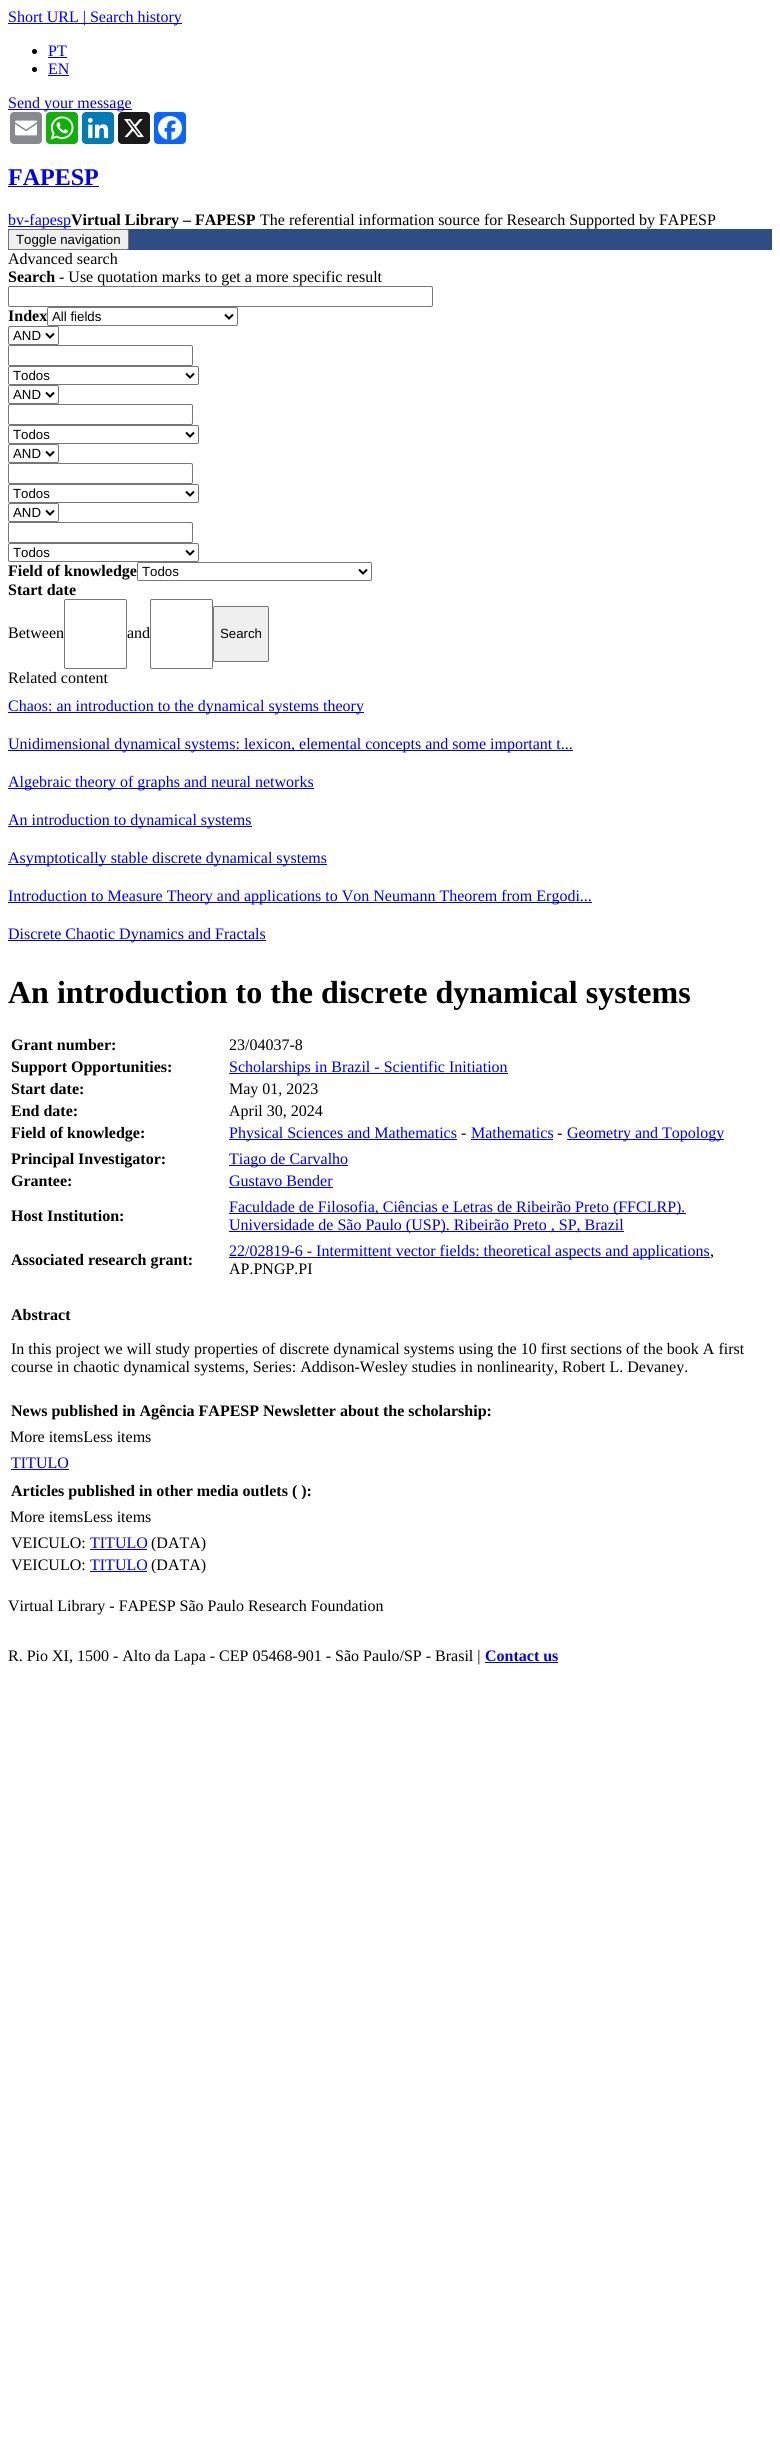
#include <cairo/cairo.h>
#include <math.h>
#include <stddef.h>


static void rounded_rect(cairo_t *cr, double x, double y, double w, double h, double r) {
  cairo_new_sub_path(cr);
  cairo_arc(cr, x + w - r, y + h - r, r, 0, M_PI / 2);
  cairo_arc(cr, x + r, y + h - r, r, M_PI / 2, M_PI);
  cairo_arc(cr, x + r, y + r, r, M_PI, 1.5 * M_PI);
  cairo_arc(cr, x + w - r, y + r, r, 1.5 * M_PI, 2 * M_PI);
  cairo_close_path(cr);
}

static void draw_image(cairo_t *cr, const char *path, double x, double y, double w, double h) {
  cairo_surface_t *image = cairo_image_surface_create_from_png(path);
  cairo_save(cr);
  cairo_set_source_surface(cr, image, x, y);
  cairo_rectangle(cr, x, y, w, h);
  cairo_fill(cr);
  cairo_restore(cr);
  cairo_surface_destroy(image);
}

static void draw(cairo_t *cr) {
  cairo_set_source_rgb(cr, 1, 1, 1);
  cairo_paint(cr);
  cairo_set_source_rgb(cr, 0, 0, 238 / 255.0);
  cairo_rectangle(cr, 8, 23, 174, 1);
  cairo_fill(cr);
  cairo_set_source_rgb(cr, 0, 0, 0);
  cairo_arc(cr, 34.5, 51.5, 2.5, 0, 2 * M_PI);
  cairo_fill(cr);
  cairo_set_source_rgb(cr, 0, 0, 238 / 255.0);
  cairo_rectangle(cr, 48, 57, 19, 1);
  cairo_fill(cr);
  cairo_set_source_rgb(cr, 0, 0, 0);
  cairo_arc(cr, 34.5, 69.5, 2.5, 0, 2 * M_PI);
  cairo_fill(cr);
  cairo_set_source_rgb(cr, 0, 0, 238 / 255.0);
  cairo_rectangle(cr, 48, 75, 21, 1);
  cairo_fill(cr);
  cairo_rectangle(cr, 8, 109, 124, 1);
  cairo_fill(cr);
  cairo_set_source_rgb(cr, 136 / 255.0, 137 / 255.0, 144 / 255.0);
  rounded_rect(cr, 10, 112, 32, 32, 4);
  cairo_fill(cr);
  draw_image(cr, "images/1.png", 15, 120, 22, 16);
  cairo_set_source_rgb(cr, 18 / 255.0, 175 / 255.0, 10 / 255.0);
  rounded_rect(cr, 46, 112, 32, 32, 4);
  cairo_fill(cr);
  draw_image(cr, "images/2.png", 50, 116, 24, 24);
  cairo_set_source_rgb(cr, 0, 123 / 255.0, 181 / 255.0);
  rounded_rect(cr, 82, 112, 32, 32, 4);
  cairo_fill(cr);
  draw_image(cr, "images/3.png", 87, 117, 22, 22);
  cairo_set_source_rgb(cr, 26 / 255.0, 26 / 255.0, 26 / 255.0);
  rounded_rect(cr, 118, 112, 32, 32, 4);
  cairo_fill(cr);
  draw_image(cr, "images/4.png", 124, 119, 20, 19);
  cairo_set_source_rgb(cr, 8 / 255.0, 102 / 255.0, 1);
  rounded_rect(cr, 154, 112, 32, 32, 4);
  cairo_fill(cr);
  draw_image(cr, "images/5.png", 158, 116, 24, 24);
  cairo_set_source_rgb(cr, 0, 0, 238 / 255.0);
  cairo_rectangle(cr, 8, 186, 91, 1);
  cairo_fill(cr);
  cairo_rectangle(cr, 8, 226, 63, 1);
  cairo_fill(cr);
  cairo_set_source_rgb(cr, 46 / 255.0, 77 / 255.0, 133 / 255.0);
  cairo_rectangle(cr, 8, 229, 764, 21);
  cairo_fill(cr);
  cairo_set_source_rgb(cr, 239 / 255.0, 239 / 255.0, 239 / 255.0);
  rounded_rect(cr, 8.5, 229.5, 120, 20, 1.5);
  cairo_fill_preserve(cr);
  cairo_set_source_rgb(cr, 118 / 255.0, 118 / 255.0, 118 / 255.0);
  cairo_set_line_width(cr, 1);
  cairo_stroke(cr);
  rounded_rect(cr, 8.5, 286.5, 424, 20, 1.5);
  cairo_stroke(cr);
  rounded_rect(cr, 8.5, 326.5, 50, 18, 1.5);
  cairo_stroke(cr);
  cairo_new_path(cr);
  cairo_move_to(cr, 46, 333.5);
  cairo_line_to(cr, 50, 337.5);
  cairo_line_to(cr, 54, 333.5);
  cairo_set_source_rgb(cr, 0, 0, 0);
  cairo_set_line_width(cr, 2);
  cairo_stroke(cr);
  rounded_rect(cr, 8.5, 345.5, 184, 20, 1.5);
  cairo_set_source_rgb(cr, 118 / 255.0, 118 / 255.0, 118 / 255.0);
  cairo_set_line_width(cr, 1);
  cairo_stroke(cr);
  rounded_rect(cr, 8.5, 366.5, 190, 18, 1.5);
  cairo_stroke(cr);
  cairo_new_path(cr);
  cairo_move_to(cr, 186, 373.5);
  cairo_line_to(cr, 190, 377.5);
  cairo_line_to(cr, 194, 373.5);
  cairo_set_source_rgb(cr, 0, 0, 0);
  cairo_set_line_width(cr, 2);
  cairo_stroke(cr);
  rounded_rect(cr, 8.5, 385.5, 50, 18, 1.5);
  cairo_set_source_rgb(cr, 118 / 255.0, 118 / 255.0, 118 / 255.0);
  cairo_set_line_width(cr, 1);
  cairo_stroke(cr);
  cairo_new_path(cr);
  cairo_move_to(cr, 46, 392.5);
  cairo_line_to(cr, 50, 396.5);
  cairo_line_to(cr, 54, 392.5);
  cairo_set_source_rgb(cr, 0, 0, 0);
  cairo_set_line_width(cr, 2);
  cairo_stroke(cr);
  rounded_rect(cr, 8.5, 404.5, 184, 20, 1.5);
  cairo_set_source_rgb(cr, 118 / 255.0, 118 / 255.0, 118 / 255.0);
  cairo_set_line_width(cr, 1);
  cairo_stroke(cr);
  rounded_rect(cr, 8.5, 425.5, 190, 18, 1.5);
  cairo_stroke(cr);
  cairo_new_path(cr);
  cairo_move_to(cr, 186, 432.5);
  cairo_line_to(cr, 190, 436.5);
  cairo_line_to(cr, 194, 432.5);
  cairo_set_source_rgb(cr, 0, 0, 0);
  cairo_set_line_width(cr, 2);
  cairo_stroke(cr);
  rounded_rect(cr, 8.5, 444.5, 50, 18, 1.5);
  cairo_set_source_rgb(cr, 118 / 255.0, 118 / 255.0, 118 / 255.0);
  cairo_set_line_width(cr, 1);
  cairo_stroke(cr);
  cairo_new_path(cr);
  cairo_move_to(cr, 46, 451.5);
  cairo_line_to(cr, 50, 455.5);
  cairo_line_to(cr, 54, 451.5);
  cairo_set_source_rgb(cr, 0, 0, 0);
  cairo_set_line_width(cr, 2);
  cairo_stroke(cr);
  rounded_rect(cr, 8.5, 463.5, 184, 20, 1.5);
  cairo_set_source_rgb(cr, 118 / 255.0, 118 / 255.0, 118 / 255.0);
  cairo_set_line_width(cr, 1);
  cairo_stroke(cr);
  rounded_rect(cr, 8.5, 484.5, 190, 18, 1.5);
  cairo_stroke(cr);
  cairo_new_path(cr);
  cairo_move_to(cr, 186, 491.5);
  cairo_line_to(cr, 190, 495.5);
  cairo_line_to(cr, 194, 491.5);
  cairo_set_source_rgb(cr, 0, 0, 0);
  cairo_set_line_width(cr, 2);
  cairo_stroke(cr);
  rounded_rect(cr, 8.5, 503.5, 50, 18, 1.5);
  cairo_set_source_rgb(cr, 118 / 255.0, 118 / 255.0, 118 / 255.0);
  cairo_set_line_width(cr, 1);
  cairo_stroke(cr);
  cairo_new_path(cr);
  cairo_move_to(cr, 46, 510.5);
  cairo_line_to(cr, 50, 514.5);
  cairo_line_to(cr, 54, 510.5);
  cairo_set_source_rgb(cr, 0, 0, 0);
  cairo_set_line_width(cr, 2);
  cairo_stroke(cr);
  rounded_rect(cr, 8.5, 522.5, 184, 20, 1.5);
  cairo_set_source_rgb(cr, 118 / 255.0, 118 / 255.0, 118 / 255.0);
  cairo_set_line_width(cr, 1);
  cairo_stroke(cr);
  rounded_rect(cr, 8.5, 543.5, 190, 18, 1.5);
  cairo_stroke(cr);
  cairo_new_path(cr);
  cairo_move_to(cr, 186, 550.5);
  cairo_line_to(cr, 190, 554.5);
  cairo_line_to(cr, 194, 550.5);
  cairo_set_source_rgb(cr, 0, 0, 0);
  cairo_set_line_width(cr, 2);
  cairo_stroke(cr);
  rounded_rect(cr, 137.5, 562.5, 234, 18, 1.5);
  cairo_set_source_rgb(cr, 118 / 255.0, 118 / 255.0, 118 / 255.0);
  cairo_set_line_width(cr, 1);
  cairo_stroke(cr);
  cairo_new_path(cr);
  cairo_move_to(cr, 359, 569.5);
  cairo_line_to(cr, 363, 573.5);
  cairo_line_to(cr, 367, 569.5);
  cairo_set_source_rgb(cr, 0, 0, 0);
  cairo_set_line_width(cr, 2);
  cairo_stroke(cr);
  rounded_rect(cr, 64.5, 599.5, 62, 69, 1.5);
  cairo_set_source_rgb(cr, 118 / 255.0, 118 / 255.0, 118 / 255.0);
  cairo_set_line_width(cr, 1);
  cairo_stroke(cr);
  rounded_rect(cr, 150.5, 599.5, 62, 69, 1.5);
  cairo_stroke(cr);
  cairo_set_source_rgb(cr, 239 / 255.0, 239 / 255.0, 239 / 255.0);
  rounded_rect(cr, 213.5, 606.5, 55, 55, 1.5);
  cairo_fill_preserve(cr);
  cairo_set_source_rgb(cr, 118 / 255.0, 118 / 255.0, 118 / 255.0);
  cairo_stroke(cr);
  cairo_set_source_rgb(cr, 0, 0, 238 / 255.0);
  cairo_rectangle(cr, 8, 712, 356, 1);
  cairo_fill(cr);
  cairo_rectangle(cr, 8, 750, 565, 1);
  cairo_fill(cr);
  cairo_rectangle(cr, 8, 788, 306, 1);
  cairo_fill(cr);
  cairo_rectangle(cr, 8, 826, 244, 1);
  cairo_fill(cr);
  cairo_rectangle(cr, 8, 864, 319, 1);
  cairo_fill(cr);
  cairo_rectangle(cr, 8, 902, 584, 1);
  cairo_fill(cr);
  cairo_rectangle(cr, 8, 940, 258, 1);
  cairo_fill(cr);
  cairo_rectangle(cr, 229, 1073, 279, 1);
  cairo_fill(cr);
  cairo_rectangle(cr, 229, 1139, 228, 1);
  cairo_fill(cr);
  cairo_rectangle(cr, 471, 1139, 82, 1);
  cairo_fill(cr);
  cairo_rectangle(cr, 567, 1139, 157, 1);
  cairo_fill(cr);
  cairo_rectangle(cr, 229, 1165, 119, 1);
  cairo_fill(cr);
  cairo_rectangle(cr, 229, 1187, 104, 1);
  cairo_fill(cr);
  cairo_rectangle(cr, 229, 1213, 457, 1);
  cairo_fill(cr);
  cairo_rectangle(cr, 229, 1231, 395, 1);
  cairo_fill(cr);
  cairo_rectangle(cr, 229, 1257, 481, 1);
  cairo_fill(cr);
  cairo_rectangle(cr, 11, 1469, 58, 1);
  cairo_fill(cr);
  cairo_rectangle(cr, 90, 1549, 57, 1);
  cairo_fill(cr);
  cairo_rectangle(cr, 90, 1571, 57, 1);
  cairo_fill(cr);
  cairo_rectangle(cr, 485, 1662, 73, 1);
  cairo_fill(cr);
  cairo_select_font_face(cr, "Liberation Serif", CAIRO_FONT_SLANT_NORMAL, CAIRO_FONT_WEIGHT_NORMAL);
  cairo_set_font_size(cr, 16);
  cairo_move_to(cr, 8, 22);
  cairo_show_text(cr, "Short URL | Search history");
  cairo_move_to(cr, 48, 56);
  cairo_show_text(cr, "PT");
  cairo_move_to(cr, 48, 74);
  cairo_show_text(cr, "EN");
  cairo_move_to(cr, 8, 108);
  cairo_show_text(cr, "Send your message");
  cairo_select_font_face(cr, "Liberation Serif", CAIRO_FONT_SLANT_NORMAL, CAIRO_FONT_WEIGHT_BOLD);
  cairo_set_font_size(cr, 24);
  cairo_move_to(cr, 8, 185);
  cairo_show_text(cr, "FAPESP");
  cairo_select_font_face(cr, "Liberation Serif", CAIRO_FONT_SLANT_NORMAL, CAIRO_FONT_WEIGHT_NORMAL);
  cairo_set_font_size(cr, 16);
  cairo_move_to(cr, 8, 225);
  cairo_show_text(cr, "bv-fapesp");
  cairo_select_font_face(cr, "Liberation Serif", CAIRO_FONT_SLANT_NORMAL, CAIRO_FONT_WEIGHT_BOLD);
  cairo_set_source_rgb(cr, 0, 0, 0);
  cairo_move_to(cr, 71, 225);
  cairo_show_text(cr, "Virtual Library – FAPESP");
  cairo_select_font_face(cr, "Liberation Serif", CAIRO_FONT_SLANT_NORMAL, CAIRO_FONT_WEIGHT_NORMAL);
  cairo_move_to(cr, 260, 225);
  cairo_show_text(cr, "The referential information source for Research Supported by FAPESP");
  cairo_select_font_face(cr, "Liberation Sans", CAIRO_FONT_SLANT_NORMAL, CAIRO_FONT_WEIGHT_NORMAL);
  cairo_set_font_size(cr, 13.25);
  cairo_move_to(cr, 16, 244);
  cairo_show_text(cr, "Toggle navigation");
  cairo_select_font_face(cr, "Liberation Serif", CAIRO_FONT_SLANT_NORMAL, CAIRO_FONT_WEIGHT_NORMAL);
  cairo_set_font_size(cr, 16);
  cairo_move_to(cr, 8, 264);
  cairo_show_text(cr, "Advanced search");
  cairo_select_font_face(cr, "Liberation Serif", CAIRO_FONT_SLANT_NORMAL, CAIRO_FONT_WEIGHT_BOLD);
  cairo_move_to(cr, 8, 282);
  cairo_show_text(cr, "Search");
  cairo_select_font_face(cr, "Liberation Serif", CAIRO_FONT_SLANT_NORMAL, CAIRO_FONT_WEIGHT_NORMAL);
  cairo_move_to(cr, 59, 282);
  cairo_show_text(cr, "- Use quotation marks to get a more specific result");
  cairo_select_font_face(cr, "Liberation Serif", CAIRO_FONT_SLANT_NORMAL, CAIRO_FONT_WEIGHT_BOLD);
  cairo_move_to(cr, 8, 321);
  cairo_show_text(cr, "Index");
  cairo_set_source_rgb(cr, 1, 1, 1);
  rounded_rect(cr, 47.5, 307.5, 190, 18, 1.5);
  cairo_fill_preserve(cr);
  cairo_set_source_rgb(cr, 118 / 255.0, 118 / 255.0, 118 / 255.0);
  cairo_stroke(cr);
  cairo_new_path(cr);
  cairo_move_to(cr, 225, 314.5);
  cairo_line_to(cr, 229, 318.5);
  cairo_line_to(cr, 233, 314.5);
  cairo_set_source_rgb(cr, 0, 0, 0);
  cairo_set_line_width(cr, 2);
  cairo_stroke(cr);
  cairo_select_font_face(cr, "Liberation Sans", CAIRO_FONT_SLANT_NORMAL, CAIRO_FONT_WEIGHT_NORMAL);
  cairo_set_font_size(cr, 13.25);
  cairo_move_to(cr, 52, 321);
  cairo_show_text(cr, "All fields");
  cairo_move_to(cr, 13, 340);
  cairo_show_text(cr, "AND");
  cairo_move_to(cr, 13, 380);
  cairo_show_text(cr, "Todos");
  cairo_move_to(cr, 13, 399);
  cairo_show_text(cr, "AND");
  cairo_move_to(cr, 13, 439);
  cairo_show_text(cr, "Todos");
  cairo_move_to(cr, 13, 458);
  cairo_show_text(cr, "AND");
  cairo_move_to(cr, 13, 498);
  cairo_show_text(cr, "Todos");
  cairo_move_to(cr, 13, 517);
  cairo_show_text(cr, "AND");
  cairo_move_to(cr, 13, 557);
  cairo_show_text(cr, "Todos");
  cairo_select_font_face(cr, "Liberation Serif", CAIRO_FONT_SLANT_NORMAL, CAIRO_FONT_WEIGHT_BOLD);
  cairo_set_font_size(cr, 16);
  cairo_move_to(cr, 8, 576);
  cairo_show_text(cr, "Field of knowledge");
  cairo_select_font_face(cr, "Liberation Sans", CAIRO_FONT_SLANT_NORMAL, CAIRO_FONT_WEIGHT_NORMAL);
  cairo_set_font_size(cr, 13.25);
  cairo_move_to(cr, 142, 576);
  cairo_show_text(cr, "Todos");
  cairo_select_font_face(cr, "Liberation Serif", CAIRO_FONT_SLANT_NORMAL, CAIRO_FONT_WEIGHT_BOLD);
  cairo_set_font_size(cr, 16);
  cairo_move_to(cr, 8, 595);
  cairo_show_text(cr, "Start date");
  cairo_select_font_face(cr, "Liberation Serif", CAIRO_FONT_SLANT_NORMAL, CAIRO_FONT_WEIGHT_NORMAL);
  cairo_move_to(cr, 8, 638);
  cairo_show_text(cr, "Between");
  cairo_move_to(cr, 127, 638);
  cairo_show_text(cr, "and");
  cairo_select_font_face(cr, "Liberation Sans", CAIRO_FONT_SLANT_NORMAL, CAIRO_FONT_WEIGHT_NORMAL);
  cairo_set_font_size(cr, 13.25);
  cairo_move_to(cr, 220, 638);
  cairo_show_text(cr, "Search");
  cairo_select_font_face(cr, "Liberation Serif", CAIRO_FONT_SLANT_NORMAL, CAIRO_FONT_WEIGHT_NORMAL);
  cairo_set_font_size(cr, 16);
  cairo_move_to(cr, 8, 683);
  cairo_show_text(cr, "Related content");
  cairo_set_source_rgb(cr, 0, 0, 238 / 255.0);
  cairo_move_to(cr, 8, 711);
  cairo_show_text(cr, "Chaos: an introduction to the dynamical systems theory");
  cairo_move_to(cr, 8, 749);
  cairo_show_text(cr, "Unidimensional dynamical systems: lexicon, elemental concepts and some important t...");
  cairo_move_to(cr, 8, 787);
  cairo_show_text(cr, "Algebraic theory of graphs and neural networks");
  cairo_move_to(cr, 8, 825);
  cairo_show_text(cr, "An introduction to dynamical systems");
  cairo_move_to(cr, 8, 863);
  cairo_show_text(cr, "Asymptotically stable discrete dynamical systems");
  cairo_move_to(cr, 8, 901);
  cairo_show_text(cr, "Introduction to Measure Theory and applications to Von Neumann Theorem from Ergodi...");
  cairo_move_to(cr, 8, 939);
  cairo_show_text(cr, "Discrete Chaotic Dynamics and Fractals");
  cairo_select_font_face(cr, "Liberation Serif", CAIRO_FONT_SLANT_NORMAL, CAIRO_FONT_WEIGHT_BOLD);
  cairo_set_font_size(cr, 32);
  cairo_set_source_rgb(cr, 0, 0, 0);
  cairo_move_to(cr, 8, 1003);
  cairo_show_text(cr, "An introduction to the discrete dynamical systems");
  cairo_set_font_size(cr, 16);
  cairo_move_to(cr, 11, 1050);
  cairo_show_text(cr, "Grant number:");
  cairo_select_font_face(cr, "Liberation Serif", CAIRO_FONT_SLANT_NORMAL, CAIRO_FONT_WEIGHT_NORMAL);
  cairo_move_to(cr, 229, 1050);
  cairo_show_text(cr, "23/04037-8");
  cairo_select_font_face(cr, "Liberation Serif", CAIRO_FONT_SLANT_NORMAL, CAIRO_FONT_WEIGHT_BOLD);
  cairo_move_to(cr, 11, 1072);
  cairo_show_text(cr, "Support Opportunities:");
  cairo_select_font_face(cr, "Liberation Serif", CAIRO_FONT_SLANT_NORMAL, CAIRO_FONT_WEIGHT_NORMAL);
  cairo_set_source_rgb(cr, 0, 0, 238 / 255.0);
  cairo_move_to(cr, 229, 1072);
  cairo_show_text(cr, "Scholarships in Brazil - Scientific Initiation");
  cairo_select_font_face(cr, "Liberation Serif", CAIRO_FONT_SLANT_NORMAL, CAIRO_FONT_WEIGHT_BOLD);
  cairo_set_source_rgb(cr, 0, 0, 0);
  cairo_move_to(cr, 11, 1094);
  cairo_show_text(cr, "Start date:");
  cairo_select_font_face(cr, "Liberation Serif", CAIRO_FONT_SLANT_NORMAL, CAIRO_FONT_WEIGHT_NORMAL);
  cairo_move_to(cr, 229, 1094);
  cairo_show_text(cr, "May 01, 2023");
  cairo_select_font_face(cr, "Liberation Serif", CAIRO_FONT_SLANT_NORMAL, CAIRO_FONT_WEIGHT_BOLD);
  cairo_move_to(cr, 11, 1116);
  cairo_show_text(cr, "End date:");
  cairo_select_font_face(cr, "Liberation Serif", CAIRO_FONT_SLANT_NORMAL, CAIRO_FONT_WEIGHT_NORMAL);
  cairo_move_to(cr, 229, 1116);
  cairo_show_text(cr, "April 30, 2024");
  cairo_select_font_face(cr, "Liberation Serif", CAIRO_FONT_SLANT_NORMAL, CAIRO_FONT_WEIGHT_BOLD);
  cairo_move_to(cr, 11, 1138);
  cairo_show_text(cr, "Field of knowledge:");
  cairo_select_font_face(cr, "Liberation Serif", CAIRO_FONT_SLANT_NORMAL, CAIRO_FONT_WEIGHT_NORMAL);
  cairo_set_source_rgb(cr, 0, 0, 238 / 255.0);
  cairo_move_to(cr, 229, 1138);
  cairo_show_text(cr, "Physical Sciences and Mathematics");
  cairo_set_source_rgb(cr, 0, 0, 0);
  cairo_move_to(cr, 461, 1138);
  cairo_show_text(cr, "-");
  cairo_set_source_rgb(cr, 0, 0, 238 / 255.0);
  cairo_move_to(cr, 471, 1138);
  cairo_show_text(cr, "Mathematics");
  cairo_set_source_rgb(cr, 0, 0, 0);
  cairo_move_to(cr, 557, 1138);
  cairo_show_text(cr, "-");
  cairo_set_source_rgb(cr, 0, 0, 238 / 255.0);
  cairo_move_to(cr, 567, 1138);
  cairo_show_text(cr, "Geometry and Topology");
  cairo_select_font_face(cr, "Liberation Serif", CAIRO_FONT_SLANT_NORMAL, CAIRO_FONT_WEIGHT_BOLD);
  cairo_set_source_rgb(cr, 0, 0, 0);
  cairo_move_to(cr, 11, 1164);
  cairo_show_text(cr, "Principal Investigator:");
  cairo_select_font_face(cr, "Liberation Serif", CAIRO_FONT_SLANT_NORMAL, CAIRO_FONT_WEIGHT_NORMAL);
  cairo_set_source_rgb(cr, 0, 0, 238 / 255.0);
  cairo_move_to(cr, 229, 1164);
  cairo_show_text(cr, "Tiago de Carvalho");
  cairo_select_font_face(cr, "Liberation Serif", CAIRO_FONT_SLANT_NORMAL, CAIRO_FONT_WEIGHT_BOLD);
  cairo_set_source_rgb(cr, 0, 0, 0);
  cairo_move_to(cr, 11, 1186);
  cairo_show_text(cr, "Grantee:");
  cairo_select_font_face(cr, "Liberation Serif", CAIRO_FONT_SLANT_NORMAL, CAIRO_FONT_WEIGHT_NORMAL);
  cairo_set_source_rgb(cr, 0, 0, 238 / 255.0);
  cairo_move_to(cr, 229, 1186);
  cairo_show_text(cr, "Gustavo Bender");
  cairo_select_font_face(cr, "Liberation Serif", CAIRO_FONT_SLANT_NORMAL, CAIRO_FONT_WEIGHT_BOLD);
  cairo_set_source_rgb(cr, 0, 0, 0);
  cairo_move_to(cr, 11, 1221);
  cairo_show_text(cr, "Host Institution:");
  cairo_select_font_face(cr, "Liberation Serif", CAIRO_FONT_SLANT_NORMAL, CAIRO_FONT_WEIGHT_NORMAL);
  cairo_set_source_rgb(cr, 0, 0, 238 / 255.0);
  cairo_move_to(cr, 229, 1212);
  cairo_show_text(cr, "Faculdade de Filosofia, Ciências e Letras de Ribeirão Preto (FFCLRP).");
  cairo_move_to(cr, 229, 1230);
  cairo_show_text(cr, "Universidade de São Paulo (USP). Ribeirão Preto , SP, Brazil");
  cairo_select_font_face(cr, "Liberation Serif", CAIRO_FONT_SLANT_NORMAL, CAIRO_FONT_WEIGHT_BOLD);
  cairo_set_source_rgb(cr, 0, 0, 0);
  cairo_move_to(cr, 11, 1265);
  cairo_show_text(cr, "Associated research grant:");
  cairo_select_font_face(cr, "Liberation Serif", CAIRO_FONT_SLANT_NORMAL, CAIRO_FONT_WEIGHT_NORMAL);
  cairo_set_source_rgb(cr, 0, 0, 238 / 255.0);
  cairo_move_to(cr, 229, 1256);
  cairo_show_text(cr, "22/02819-6 - Intermittent vector fields: theoretical aspects and applications");
  cairo_set_source_rgb(cr, 0, 0, 0);
  cairo_move_to(cr, 710, 1256);
  cairo_show_text(cr, ",");
  cairo_move_to(cr, 229, 1274);
  cairo_show_text(cr, "AP.PNGP.PI");
  cairo_select_font_face(cr, "Liberation Serif", CAIRO_FONT_SLANT_NORMAL, CAIRO_FONT_WEIGHT_BOLD);
  cairo_move_to(cr, 11, 1320);
  cairo_show_text(cr, "Abstract");
  cairo_select_font_face(cr, "Liberation Serif", CAIRO_FONT_SLANT_NORMAL, CAIRO_FONT_WEIGHT_NORMAL);
  cairo_move_to(cr, 11, 1354);
  cairo_show_text(cr, "In this project we will study properties of discrete dynamical systems using the 10 first sections of the book A first");
  cairo_move_to(cr, 11, 1372);
  cairo_show_text(cr, "course in chaotic dynamical systems, Series: Addison-Wesley studies in nonlinearity, Robert L. Devaney.");
  cairo_select_font_face(cr, "Liberation Serif", CAIRO_FONT_SLANT_NORMAL, CAIRO_FONT_WEIGHT_BOLD);
  cairo_move_to(cr, 11, 1416);
  cairo_show_text(cr, "News published in Agência FAPESP Newsletter about the scholarship:");
  cairo_select_font_face(cr, "Liberation Serif", CAIRO_FONT_SLANT_NORMAL, CAIRO_FONT_WEIGHT_NORMAL);
  cairo_move_to(cr, 10, 1442);
  cairo_show_text(cr, "More itemsLess items");
  cairo_set_source_rgb(cr, 0, 0, 238 / 255.0);
  cairo_move_to(cr, 11, 1468);
  cairo_show_text(cr, "TITULO");
  cairo_select_font_face(cr, "Liberation Serif", CAIRO_FONT_SLANT_NORMAL, CAIRO_FONT_WEIGHT_BOLD);
  cairo_set_source_rgb(cr, 0, 0, 0);
  cairo_move_to(cr, 11, 1496);
  cairo_show_text(cr, "Articles published in other media outlets ( ):");
  cairo_select_font_face(cr, "Liberation Serif", CAIRO_FONT_SLANT_NORMAL, CAIRO_FONT_WEIGHT_NORMAL);
  cairo_move_to(cr, 10, 1522);
  cairo_show_text(cr, "More itemsLess items");
  cairo_move_to(cr, 11, 1548);
  cairo_show_text(cr, "VEICULO:");
  cairo_set_source_rgb(cr, 0, 0, 238 / 255.0);
  cairo_move_to(cr, 90, 1548);
  cairo_show_text(cr, "TITULO");
  cairo_set_source_rgb(cr, 0, 0, 0);
  cairo_move_to(cr, 151, 1548);
  cairo_show_text(cr, "(DATA)");
  cairo_move_to(cr, 11, 1570);
  cairo_show_text(cr, "VEICULO:");
  cairo_set_source_rgb(cr, 0, 0, 238 / 255.0);
  cairo_move_to(cr, 90, 1570);
  cairo_show_text(cr, "TITULO");
  cairo_set_source_rgb(cr, 0, 0, 0);
  cairo_move_to(cr, 151, 1570);
  cairo_show_text(cr, "(DATA)");
  cairo_move_to(cr, 8, 1611);
  cairo_show_text(cr, "Virtual Library - FAPESP São Paulo Research Foundation");
  cairo_move_to(cr, 8, 1661);
  cairo_show_text(cr, "R. Pio XI, 1500 - Alto da Lapa - CEP 05468-901 - São Paulo/SP - Brasil |");
  cairo_select_font_face(cr, "Liberation Serif", CAIRO_FONT_SLANT_NORMAL, CAIRO_FONT_WEIGHT_BOLD);
  cairo_set_source_rgb(cr, 0, 0, 238 / 255.0);
  cairo_move_to(cr, 485, 1661);
  cairo_show_text(cr, "Contact us");
}

int main(void) {
  cairo_surface_t *surface = cairo_image_surface_create(CAIRO_FORMAT_RGB24, 780, 2463);
  cairo_t *cr = cairo_create(surface);
  cairo_font_options_t *options = cairo_font_options_create();
  cairo_font_options_set_hint_metrics(options, CAIRO_HINT_METRICS_OFF);
  cairo_font_options_set_hint_style(options, CAIRO_HINT_STYLE_NONE);
  cairo_set_font_options(cr, options);
  cairo_set_miter_limit(cr, 4);
  draw(cr);
  cairo_surface_write_to_png(surface, "out.png");
  cairo_font_options_destroy(options);
  cairo_destroy(cr);
  cairo_surface_destroy(surface);
  return 0;
}
